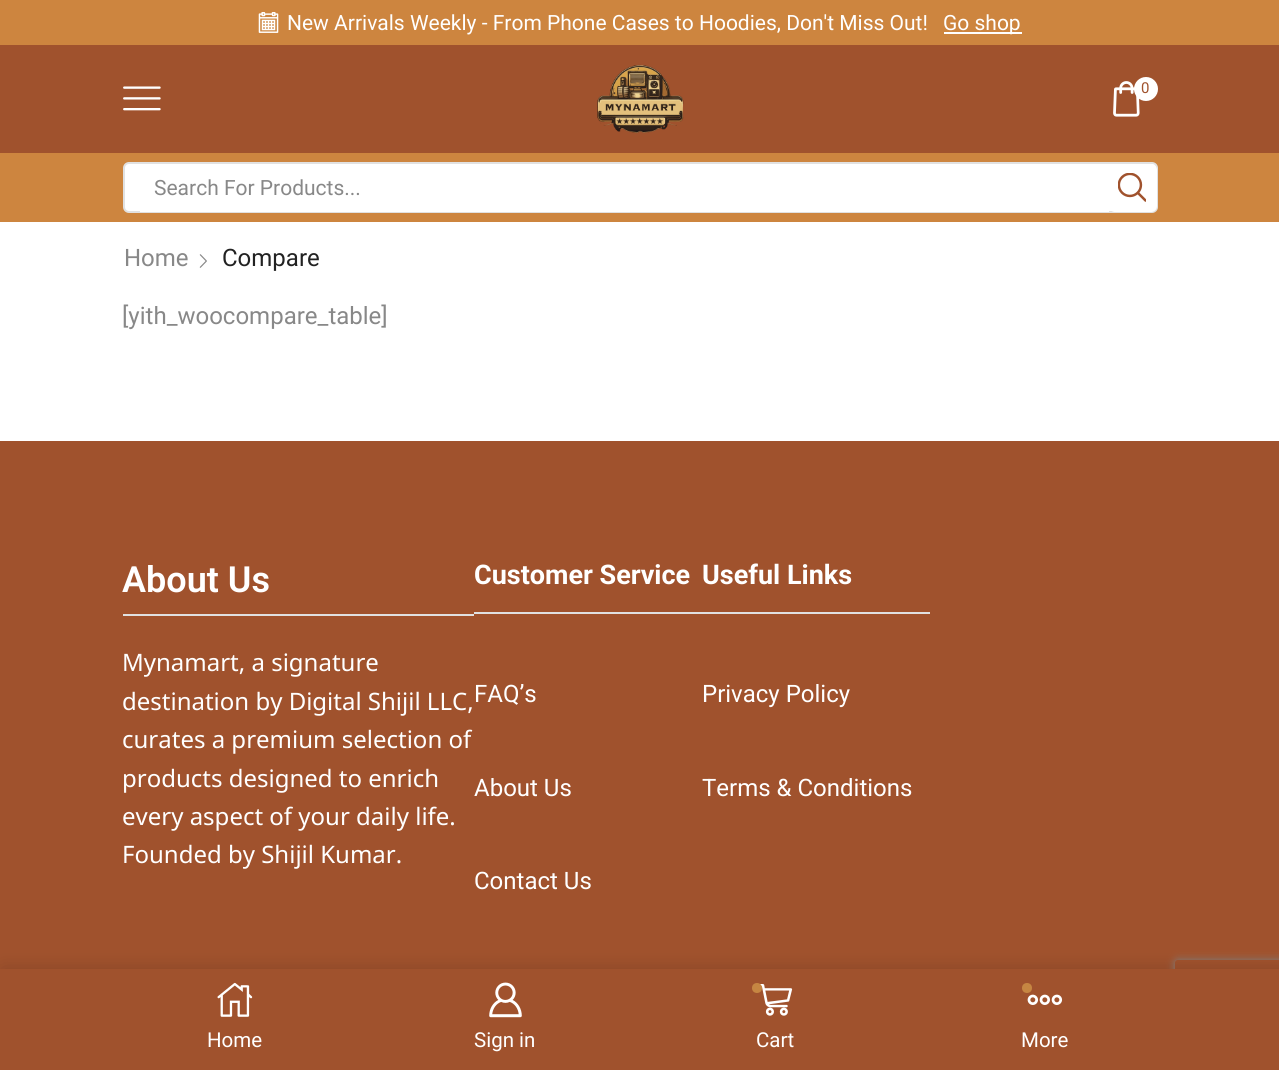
#include <cairo/cairo.h>
#include <math.h>
#include <stddef.h>


static void rounded_rect(cairo_t *cr, double x, double y, double w, double h, double r) {
  cairo_new_sub_path(cr);
  cairo_arc(cr, x + w - r, y + h - r, r, 0, M_PI / 2);
  cairo_arc(cr, x + r, y + h - r, r, M_PI / 2, M_PI);
  cairo_arc(cr, x + r, y + r, r, M_PI, 1.5 * M_PI);
  cairo_arc(cr, x + w - r, y + r, r, 1.5 * M_PI, 2 * M_PI);
  cairo_close_path(cr);
}

static void draw_shadow(cairo_t *cr, double x, double y, double w, double h, double r, double blur, double alpha) {
  cairo_push_group_with_content(cr, CAIRO_CONTENT_ALPHA);
  cairo_set_operator(cr, CAIRO_OPERATOR_SOURCE);
  for (int i = 15; i >= -15 && fmin(w, h) + blur * i / 3 > 0; i -= 2) {
    double e = blur * i / 6;
    cairo_set_source_rgba(cr, 0, 0, 0, alpha * erfc((i - 1) / 8.5) / 2);
    rounded_rect(cr, x - e, y - e, w + 2 * e, h + 2 * e, fmax(0, fmin(r + e + blur * .6, fmin(w, h) / 2 + e)));
    cairo_fill(cr);
  }
  cairo_pattern_t *soft = cairo_pop_group(cr);
  cairo_mask(cr, soft);
  cairo_pattern_destroy(soft);
}

static void draw_image(cairo_t *cr, const char *path, double x, double y, double w, double h) {
  cairo_surface_t *image = cairo_image_surface_create_from_png(path);
  cairo_save(cr);
  cairo_set_source_surface(cr, image, x, y);
  cairo_rectangle(cr, x, y, w, h);
  cairo_fill(cr);
  cairo_restore(cr);
  cairo_surface_destroy(image);
}

static void draw(cairo_t *cr) {
  cairo_set_source_rgb(cr, 1, 1, 1);
  cairo_paint(cr);
  cairo_set_source_rgb(cr, 205 / 255.0, 133 / 255.0, 63 / 255.0);
  cairo_rectangle(cr, 0, 0, 1279, 45);
  cairo_fill(cr);
  draw_image(cr, "images/1.png", 258, 12, 21, 21);
  cairo_set_source_rgb(cr, 1, 1, 1);
  cairo_rectangle(cr, 944, 32, 78, 2);
  cairo_fill(cr);
  cairo_set_source_rgb(cr, 160 / 255.0, 82 / 255.0, 45 / 255.0);
  cairo_rectangle(cr, 0, 45, 1279, 108);
  cairo_fill(cr);
  draw_image(cr, "images/2.png", 123, 86, 38, 25);
  draw_image(cr, "images/3.png", 597, 64, 87, 69);
  draw_image(cr, "images/4.png", 1113, 81, 27, 36);
  cairo_set_source_rgb(cr, 1, 1, 1);
  cairo_arc(cr, 1146, 89, 12, 0, 2 * M_PI);
  cairo_fill(cr);
  cairo_set_source_rgb(cr, 205 / 255.0, 133 / 255.0, 63 / 255.0);
  cairo_rectangle(cr, 0, 153, 1279, 69);
  cairo_fill(cr);
  cairo_set_source_rgb(cr, 1, 1, 1);
  rounded_rect(cr, 124, 163, 1033, 49, 5);
  cairo_fill_preserve(cr);
  cairo_set_source_rgb(cr, 225 / 255.0, 225 / 255.0, 225 / 255.0);
  cairo_stroke(cr);
  cairo_set_source_rgb(cr, 1, 1, 1);
  cairo_rectangle(cr, 140, 211, 969, 1);
  cairo_fill(cr);
  cairo_save(cr);
  rounded_rect(cr, 125, 164, 1032, 48, 5);
  cairo_clip(cr);
  rounded_rect(cr, 1109, 164, 48, 48, 6);
  cairo_fill(cr);
  cairo_restore(cr);
  draw_image(cr, "images/5.png", 1118, 173, 28, 29);
  draw_image(cr, "images/6.png", 199, 254, 8, 14);
  cairo_set_source_rgb(cr, 160 / 255.0, 82 / 255.0, 45 / 255.0);
  cairo_rectangle(cr, 0, 441, 1279, 528);
  cairo_fill(cr);
  cairo_set_source_rgb(cr, 225 / 255.0, 225 / 255.0, 225 / 255.0);
  cairo_rectangle(cr, 123, 614, 351, 2);
  cairo_fill(cr);
  cairo_rectangle(cr, 474, 612, 456, 2);
  cairo_fill(cr);
  cairo_set_source_rgb(cr, 0, 0, 0);
  draw_shadow(cr, 3, 969, 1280, 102, 0, 9, 0.15);
  cairo_save(cr);
  cairo_set_fill_rule(cr, CAIRO_FILL_RULE_EVEN_ODD);
  cairo_new_path(cr);
  cairo_move_to(cr, 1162, 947);
  cairo_line_to(cr, 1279, 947);
  cairo_line_to(cr, 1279, 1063);
  cairo_line_to(cr, 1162, 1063);
  cairo_close_path(cr);
  cairo_move_to(cr, 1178, 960);
  cairo_line_to(cr, 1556, 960);
  cairo_curve_to(cr, 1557.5, 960, 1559, 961.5, 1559, 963);
  cairo_line_to(cr, 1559, 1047);
  cairo_curve_to(cr, 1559, 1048.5, 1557.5, 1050, 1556, 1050);
  cairo_line_to(cr, 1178, 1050);
  cairo_curve_to(cr, 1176.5, 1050, 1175, 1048.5, 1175, 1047);
  cairo_line_to(cr, 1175, 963);
  cairo_curve_to(cr, 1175, 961.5, 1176.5, 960, 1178, 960);
  cairo_close_path(cr);
  cairo_clip(cr);
  cairo_set_source_rgb(cr, 128 / 255.0, 128 / 255.0, 128 / 255.0);
  draw_shadow(cr, 1175, 960, 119, 90, 3, 4, 1);
  cairo_restore(cr);
  cairo_set_source_rgb(cr, 160 / 255.0, 82 / 255.0, 45 / 255.0);
  cairo_rectangle(cr, 0, 969, 1279, 101);
  cairo_fill(cr);
  draw_image(cr, "images/7.png", 217, 982, 36, 35);
  draw_image(cr, "images/8.png", 489, 982, 33, 36);
  draw_image(cr, "images/9.png", 760, 984, 33, 32);
  cairo_set_source_rgb(cr, 198 / 255.0, 134 / 255.0, 66 / 255.0);
  cairo_arc(cr, 757, 988, 5, 0, 2 * M_PI);
  cairo_fill(cr);
  cairo_arc(cr, 1027, 988, 5, 0, 2 * M_PI);
  cairo_fill(cr);
  draw_image(cr, "images/10.png", 1027, 994, 36, 11);
  cairo_select_font_face(cr, "Roboto", CAIRO_FONT_SLANT_NORMAL, CAIRO_FONT_WEIGHT_NORMAL);
  cairo_set_font_size(cr, 21);
  cairo_set_source_rgb(cr, 1, 1, 1);
  cairo_move_to(cr, 287, 30);
  cairo_show_text(cr, "New Arrivals Weekly - From Phone Cases to Hoodies, Don't Miss Out!");
  cairo_move_to(cr, 943, 30);
  cairo_show_text(cr, "Go shop");
  cairo_set_font_size(cr, 15);
  cairo_set_source_rgb(cr, 160 / 255.0, 82 / 255.0, 45 / 255.0);
  cairo_move_to(cr, 1141, 93);
  cairo_show_text(cr, "0");
  cairo_set_font_size(cr, 21);
  cairo_set_source_rgb(cr, 136 / 255.0, 136 / 255.0, 136 / 255.0);
  cairo_move_to(cr, 154, 195);
  cairo_show_text(cr, "Search For Products...");
  cairo_set_font_size(cr, 24);
  cairo_move_to(cr, 124, 266);
  cairo_show_text(cr, "Home");
  cairo_set_source_rgb(cr, 34 / 255.0, 34 / 255.0, 34 / 255.0);
  cairo_move_to(cr, 222, 266);
  cairo_show_text(cr, "Compare");
  cairo_set_source_rgb(cr, 136 / 255.0, 136 / 255.0, 136 / 255.0);
  cairo_move_to(cr, 122, 324);
  cairo_show_text(cr, "[yith_woocompare_table]");
  cairo_select_font_face(cr, "Roboto SemiBold", CAIRO_FONT_SLANT_NORMAL, CAIRO_FONT_WEIGHT_NORMAL);
  cairo_set_font_size(cr, 36);
  cairo_set_source_rgb(cr, 1, 1, 1);
  cairo_move_to(cr, 122, 592);
  cairo_show_text(cr, "About Us");
  cairo_select_font_face(cr, "Noto Sans", CAIRO_FONT_SLANT_NORMAL, CAIRO_FONT_WEIGHT_NORMAL);
  cairo_set_font_size(cr, 24);
  cairo_move_to(cr, 122, 671);
  cairo_show_text(cr, "Mynamart, a signature");
  cairo_move_to(cr, 122, 710);
  cairo_show_text(cr, "destination by Digital Shijil LLC,");
  cairo_move_to(cr, 122, 748);
  cairo_show_text(cr, "curates a premium selection of");
  cairo_move_to(cr, 122, 787);
  cairo_show_text(cr, "products designed to enrich");
  cairo_move_to(cr, 122, 825);
  cairo_show_text(cr, "every aspect of your daily life.");
  cairo_move_to(cr, 122, 863);
  cairo_show_text(cr, "Founded by Shijil Kumar.");
  cairo_select_font_face(cr, "Roboto", CAIRO_FONT_SLANT_NORMAL, CAIRO_FONT_WEIGHT_BOLD);
  cairo_set_font_size(cr, 27);
  cairo_move_to(cr, 474, 584);
  cairo_show_text(cr, "Customer Service");
  cairo_select_font_face(cr, "Roboto", CAIRO_FONT_SLANT_NORMAL, CAIRO_FONT_WEIGHT_NORMAL);
  cairo_set_font_size(cr, 24);
  cairo_move_to(cr, 474, 702);
  cairo_show_text(cr, "FAQ’s");
  cairo_move_to(cr, 474, 796);
  cairo_show_text(cr, "About Us");
  cairo_move_to(cr, 474, 889);
  cairo_show_text(cr, "Contact Us");
  cairo_select_font_face(cr, "Roboto", CAIRO_FONT_SLANT_NORMAL, CAIRO_FONT_WEIGHT_BOLD);
  cairo_set_font_size(cr, 27);
  cairo_move_to(cr, 702, 584);
  cairo_show_text(cr, "Useful Links");
  cairo_select_font_face(cr, "Roboto", CAIRO_FONT_SLANT_NORMAL, CAIRO_FONT_WEIGHT_NORMAL);
  cairo_set_font_size(cr, 24);
  cairo_move_to(cr, 702, 702);
  cairo_show_text(cr, "Privacy Policy");
  cairo_move_to(cr, 702, 796);
  cairo_show_text(cr, "Terms & Conditions");
  cairo_set_font_size(cr, 20.5);
  cairo_move_to(cr, 207, 1047);
  cairo_show_text(cr, "Home");
  cairo_move_to(cr, 474, 1047);
  cairo_show_text(cr, "Sign in");
  cairo_move_to(cr, 756, 1047);
  cairo_show_text(cr, "Cart");
  cairo_move_to(cr, 1021, 1047);
  cairo_show_text(cr, "More");
}

int main(void) {
  cairo_surface_t *surface = cairo_image_surface_create(CAIRO_FORMAT_RGB24, 1279, 1070);
  cairo_t *cr = cairo_create(surface);
  cairo_font_options_t *options = cairo_font_options_create();
  cairo_font_options_set_hint_metrics(options, CAIRO_HINT_METRICS_OFF);
  cairo_font_options_set_hint_style(options, CAIRO_HINT_STYLE_NONE);
  cairo_set_font_options(cr, options);
  cairo_set_miter_limit(cr, 4);
  draw(cr);
  cairo_surface_write_to_png(surface, "out.png");
  cairo_font_options_destroy(options);
  cairo_destroy(cr);
  cairo_surface_destroy(surface);
  return 0;
}
